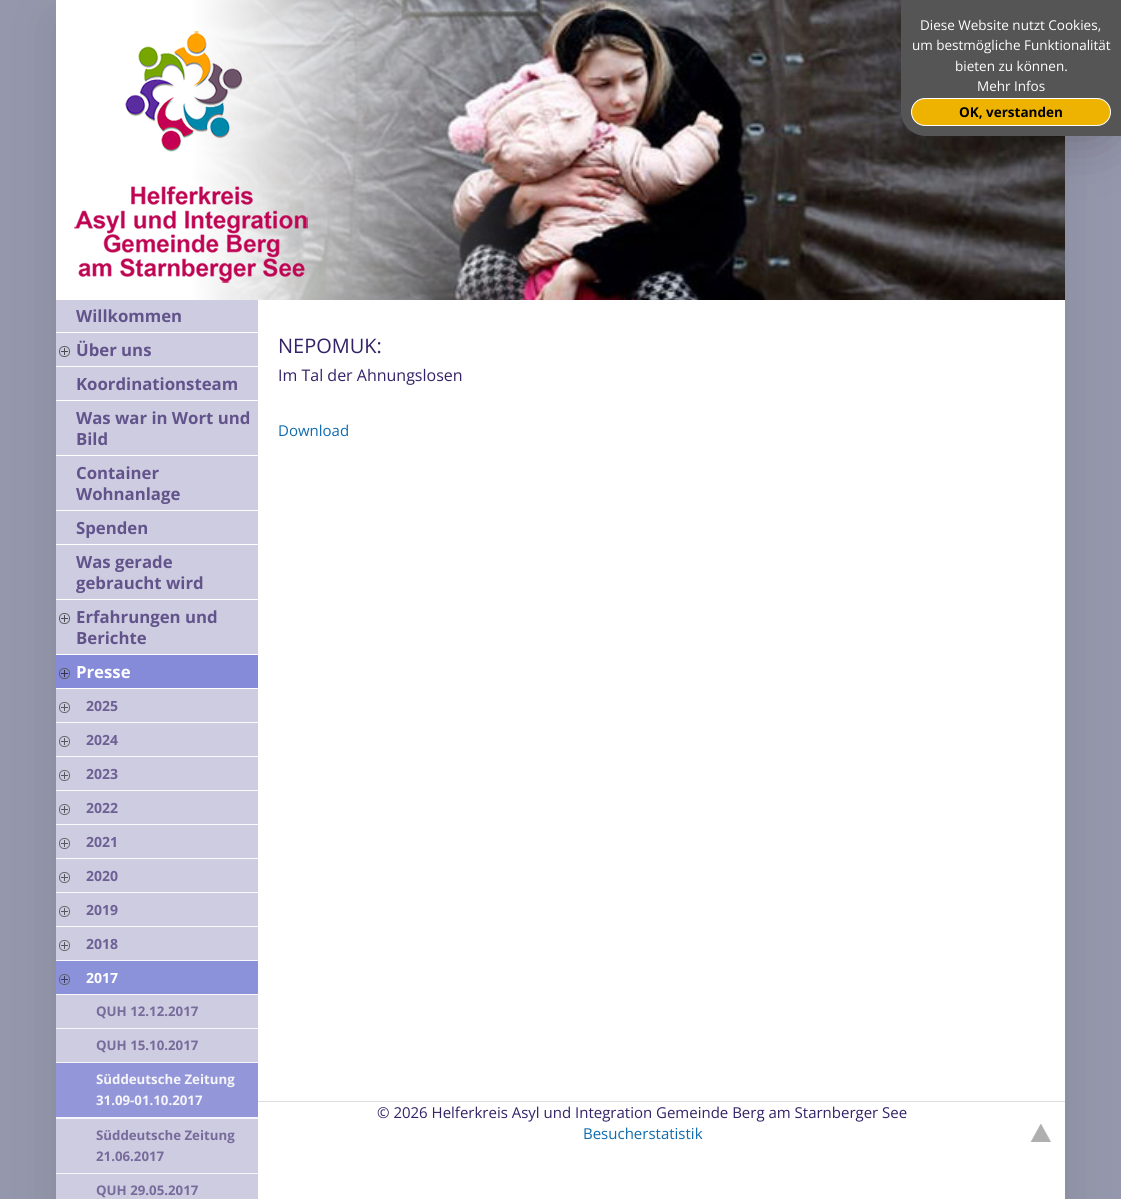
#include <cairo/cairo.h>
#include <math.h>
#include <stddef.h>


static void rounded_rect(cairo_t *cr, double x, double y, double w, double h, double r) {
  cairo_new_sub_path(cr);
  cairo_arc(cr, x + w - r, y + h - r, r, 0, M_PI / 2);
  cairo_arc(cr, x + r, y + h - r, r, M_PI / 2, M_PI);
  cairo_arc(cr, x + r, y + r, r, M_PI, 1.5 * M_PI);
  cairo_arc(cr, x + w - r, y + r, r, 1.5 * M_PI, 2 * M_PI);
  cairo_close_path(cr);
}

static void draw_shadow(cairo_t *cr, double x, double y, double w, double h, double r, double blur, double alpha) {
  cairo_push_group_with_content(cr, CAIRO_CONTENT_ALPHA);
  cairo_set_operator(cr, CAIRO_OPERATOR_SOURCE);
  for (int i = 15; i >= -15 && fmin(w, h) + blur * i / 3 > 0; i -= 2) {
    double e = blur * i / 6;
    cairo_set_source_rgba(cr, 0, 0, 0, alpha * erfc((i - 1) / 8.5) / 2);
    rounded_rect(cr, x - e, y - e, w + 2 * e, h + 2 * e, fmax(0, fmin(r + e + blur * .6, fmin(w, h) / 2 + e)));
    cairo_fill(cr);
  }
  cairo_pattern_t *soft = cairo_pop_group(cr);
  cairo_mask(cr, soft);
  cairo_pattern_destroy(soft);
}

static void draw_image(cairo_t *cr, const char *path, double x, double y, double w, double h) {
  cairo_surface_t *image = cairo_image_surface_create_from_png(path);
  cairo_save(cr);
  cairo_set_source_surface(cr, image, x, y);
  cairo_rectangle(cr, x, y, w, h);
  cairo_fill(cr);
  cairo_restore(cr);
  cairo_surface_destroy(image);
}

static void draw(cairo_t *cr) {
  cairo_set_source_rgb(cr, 149 / 255.0, 151 / 255.0, 172 / 255.0);
  cairo_paint(cr);
  cairo_set_source_rgb(cr, 0, 0, 0);
  draw_shadow(cr, 56, 20, 1009, 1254, 0, 25, 0.1);
  draw_image(cr, "images/4.png", 193, 0, 872, 300);
  draw_shadow(cr, 901, 10, 220, 136, 25, 25, 0.2);
  cairo_set_source_rgb(cr, 85 / 255.0, 85 / 255.0, 85 / 255.0);
  cairo_new_path(cr);
  cairo_move_to(cr, 901, 0);
  cairo_line_to(cr, 1121, 0);
  cairo_line_to(cr, 1121, 136);
  cairo_line_to(cr, 926, 136);
  cairo_curve_to(cr, 912, 136, 901, 125, 901, 111);
  cairo_close_path(cr);
  cairo_fill(cr);
  cairo_set_source_rgb(cr, 238 / 255.0, 179 / 255.0, 0);
  rounded_rect(cr, 911.5, 98.5, 199, 27, 13.5);
  cairo_fill_preserve(cr);
  cairo_set_source_rgb(cr, 1, 1, 1);
  cairo_set_line_width(cr, 1);
  cairo_stroke(cr);
  draw_image(cr, "images/1.png", 258, 300, 807, 899);
  draw_image(cr, "images/2.png", 56, 0, 485, 300);
  draw_image(cr, "images/3.png", 74, 31, 234, 252);
  cairo_set_source_rgb(cr, 206 / 255.0, 204 / 255.0, 225 / 255.0);
  cairo_rectangle(cr, 56, 300, 202, 899);
  cairo_fill(cr);
  cairo_set_source_rgb(cr, 1, 1, 1);
  cairo_rectangle(cr, 56, 332, 202, 1);
  cairo_fill(cr);
  cairo_rectangle(cr, 56, 366, 202, 1);
  cairo_fill(cr);
  draw_image(cr, "images/5.png", 59, 346, 11, 11);
  cairo_rectangle(cr, 56, 400, 202, 1);
  cairo_fill(cr);
  cairo_rectangle(cr, 56, 455, 202, 1);
  cairo_fill(cr);
  cairo_rectangle(cr, 56, 510, 202, 1);
  cairo_fill(cr);
  cairo_rectangle(cr, 56, 544, 202, 1);
  cairo_fill(cr);
  cairo_rectangle(cr, 56, 599, 202, 1);
  cairo_fill(cr);
  cairo_rectangle(cr, 56, 654, 202, 1);
  cairo_fill(cr);
  draw_image(cr, "images/5.png", 59, 613, 11, 11);
  cairo_set_source_rgb(cr, 133 / 255.0, 139 / 255.0, 216 / 255.0);
  cairo_rectangle(cr, 56, 655, 202, 33);
  cairo_fill(cr);
  draw_image(cr, "images/6.png", 59, 668, 11, 11);
  cairo_set_source_rgb(cr, 1, 1, 1);
  cairo_rectangle(cr, 56, 688, 202, 1);
  cairo_fill(cr);
  cairo_set_source_rgb(cr, 250 / 255.0, 250 / 255.0, 252 / 255.0);
  cairo_rectangle(cr, 56, 722, 202, 1);
  cairo_fill(cr);
  draw_image(cr, "images/7.png", 59, 702, 11, 11);
  cairo_rectangle(cr, 56, 756, 202, 1);
  cairo_fill(cr);
  draw_image(cr, "images/7.png", 59, 736, 11, 11);
  cairo_rectangle(cr, 56, 790, 202, 1);
  cairo_fill(cr);
  draw_image(cr, "images/7.png", 59, 770, 11, 11);
  cairo_rectangle(cr, 56, 824, 202, 1);
  cairo_fill(cr);
  draw_image(cr, "images/7.png", 59, 804, 11, 11);
  cairo_rectangle(cr, 56, 858, 202, 1);
  cairo_fill(cr);
  draw_image(cr, "images/7.png", 59, 838, 11, 11);
  cairo_rectangle(cr, 56, 892, 202, 1);
  cairo_fill(cr);
  draw_image(cr, "images/7.png", 59, 872, 11, 11);
  cairo_rectangle(cr, 56, 926, 202, 1);
  cairo_fill(cr);
  draw_image(cr, "images/7.png", 59, 906, 11, 11);
  cairo_rectangle(cr, 56, 960, 202, 1);
  cairo_fill(cr);
  draw_image(cr, "images/7.png", 59, 940, 11, 11);
  cairo_set_source_rgb(cr, 140 / 255.0, 146 / 255.0, 217 / 255.0);
  cairo_rectangle(cr, 56, 961, 202, 33);
  cairo_fill(cr);
  draw_image(cr, "images/8.png", 59, 974, 11, 11);
  cairo_set_source_rgb(cr, 250 / 255.0, 250 / 255.0, 252 / 255.0);
  cairo_rectangle(cr, 56, 994, 202, 1);
  cairo_fill(cr);
  cairo_set_source_rgb(cr, 246 / 255.0, 245 / 255.0, 249 / 255.0);
  cairo_rectangle(cr, 56, 1028, 202, 1);
  cairo_fill(cr);
  cairo_rectangle(cr, 56, 1062, 202, 1);
  cairo_fill(cr);
  cairo_rectangle(cr, 56, 1117, 202, 2);
  cairo_fill(cr);
  cairo_set_source_rgb(cr, 147 / 255.0, 151 / 255.0, 218 / 255.0);
  cairo_rectangle(cr, 56, 1063, 202, 54);
  cairo_fill(cr);
  cairo_set_source_rgb(cr, 246 / 255.0, 245 / 255.0, 249 / 255.0);
  cairo_rectangle(cr, 56, 1173, 202, 1);
  cairo_fill(cr);
  cairo_set_source_rgb(cr, 221 / 255.0, 221 / 255.0, 221 / 255.0);
  cairo_rectangle(cr, 258, 1101, 807, 1);
  cairo_fill(cr);
  draw_image(cr, "images/9.png", 1030, 1124, 21, 18);
  cairo_select_font_face(cr, "Open Sans", CAIRO_FONT_SLANT_NORMAL, CAIRO_FONT_WEIGHT_NORMAL);
  cairo_set_font_size(cr, 13.5);
  cairo_set_source_rgb(cr, 1, 1, 1);
  cairo_move_to(cr, 920, 30);
  cairo_show_text(cr, "Diese Website nutzt Cookies,");
  cairo_move_to(cr, 912, 50);
  cairo_show_text(cr, "um bestmögliche Funktionalität");
  cairo_move_to(cr, 955, 71);
  cairo_show_text(cr, "bieten zu können.");
  cairo_move_to(cr, 977, 91);
  cairo_show_text(cr, "Mehr Infos");
  cairo_select_font_face(cr, "Open Sans", CAIRO_FONT_SLANT_NORMAL, CAIRO_FONT_WEIGHT_BOLD);
  cairo_set_source_rgb(cr, 0, 0, 0);
  cairo_move_to(cr, 959, 117);
  cairo_show_text(cr, "OK, verstanden");
  cairo_set_font_size(cr, 16.75);
  cairo_set_source_rgb(cr, 98 / 255.0, 84 / 255.0, 139 / 255.0);
  cairo_move_to(cr, 76, 322);
  cairo_show_text(cr, "Willkommen");
  cairo_move_to(cr, 76, 356);
  cairo_show_text(cr, "Über uns");
  cairo_move_to(cr, 76, 390);
  cairo_show_text(cr, "Koordinationsteam");
  cairo_move_to(cr, 76, 424);
  cairo_show_text(cr, "Was war in Wort und");
  cairo_move_to(cr, 76, 445);
  cairo_show_text(cr, "Bild");
  cairo_move_to(cr, 76, 479);
  cairo_show_text(cr, "Container");
  cairo_move_to(cr, 76, 500);
  cairo_show_text(cr, "Wohnanlage");
  cairo_move_to(cr, 76, 534);
  cairo_show_text(cr, "Spenden");
  cairo_move_to(cr, 76, 568);
  cairo_show_text(cr, "Was gerade");
  cairo_move_to(cr, 76, 589);
  cairo_show_text(cr, "gebraucht wird");
  cairo_move_to(cr, 76, 623);
  cairo_show_text(cr, "Erfahrungen und");
  cairo_move_to(cr, 76, 644);
  cairo_show_text(cr, "Berichte");
  cairo_set_source_rgb(cr, 1, 1, 1);
  cairo_move_to(cr, 76, 678);
  cairo_show_text(cr, "Presse");
  cairo_set_font_size(cr, 14);
  cairo_set_source_rgb(cr, 109 / 255.0, 96 / 255.0, 148 / 255.0);
  cairo_move_to(cr, 86, 711);
  cairo_show_text(cr, "2025");
  cairo_move_to(cr, 86, 745);
  cairo_show_text(cr, "2024");
  cairo_move_to(cr, 86, 779);
  cairo_show_text(cr, "2023");
  cairo_move_to(cr, 86, 813);
  cairo_show_text(cr, "2022");
  cairo_move_to(cr, 86, 847);
  cairo_show_text(cr, "2021");
  cairo_move_to(cr, 86, 881);
  cairo_show_text(cr, "2020");
  cairo_move_to(cr, 86, 915);
  cairo_show_text(cr, "2019");
  cairo_move_to(cr, 86, 949);
  cairo_show_text(cr, "2018");
  cairo_set_source_rgb(cr, 1, 1, 1);
  cairo_move_to(cr, 86, 983);
  cairo_show_text(cr, "2017");
  cairo_set_font_size(cr, 13.25);
  cairo_set_source_rgb(cr, 119 / 255.0, 107 / 255.0, 155 / 255.0);
  cairo_move_to(cr, 96, 1016);
  cairo_show_text(cr, "QUH 12.12.2017");
  cairo_move_to(cr, 96, 1050);
  cairo_show_text(cr, "QUH 15.10.2017");
  cairo_set_source_rgb(cr, 246 / 255.0, 245 / 255.0, 249 / 255.0);
  cairo_move_to(cr, 96, 1084);
  cairo_show_text(cr, "Süddeutsche Zeitung");
  cairo_move_to(cr, 96, 1105);
  cairo_show_text(cr, "31.09-01.10.2017");
  cairo_set_source_rgb(cr, 119 / 255.0, 107 / 255.0, 155 / 255.0);
  cairo_move_to(cr, 96, 1140);
  cairo_show_text(cr, "Süddeutsche Zeitung");
  cairo_move_to(cr, 96, 1161);
  cairo_show_text(cr, "21.06.2017");
  cairo_move_to(cr, 96, 1195);
  cairo_show_text(cr, "QUH 29.05.2017");
  cairo_select_font_face(cr, "Open Sans", CAIRO_FONT_SLANT_NORMAL, CAIRO_FONT_WEIGHT_NORMAL);
  cairo_set_font_size(cr, 20);
  cairo_set_source_rgb(cr, 52 / 255.0, 34 / 255.0, 104 / 255.0);
  cairo_move_to(cr, 278, 353);
  cairo_show_text(cr, "NEPOMUK:");
  cairo_set_font_size(cr, 16);
  cairo_move_to(cr, 278, 381);
  cairo_show_text(cr, "Im Tal der Ahnungslosen");
  cairo_set_font_size(cr, 15);
  cairo_set_source_rgb(cr, 16 / 255.0, 107 / 255.0, 174 / 255.0);
  cairo_move_to(cr, 278, 436);
  cairo_show_text(cr, "Download");
  cairo_set_source_rgb(cr, 52 / 255.0, 34 / 255.0, 104 / 255.0);
  cairo_move_to(cr, 377, 1118);
  cairo_show_text(cr, "© 2026 Helferkreis Asyl und Integration Gemeinde Berg am Starnberger See");
  cairo_set_source_rgb(cr, 16 / 255.0, 107 / 255.0, 174 / 255.0);
  cairo_move_to(cr, 583, 1139);
  cairo_show_text(cr, "Besucherstatistik");
}

int main(void) {
  cairo_surface_t *surface = cairo_image_surface_create(CAIRO_FORMAT_RGB24, 1121, 1199);
  cairo_t *cr = cairo_create(surface);
  cairo_font_options_t *options = cairo_font_options_create();
  cairo_font_options_set_hint_metrics(options, CAIRO_HINT_METRICS_OFF);
  cairo_font_options_set_hint_style(options, CAIRO_HINT_STYLE_NONE);
  cairo_set_font_options(cr, options);
  cairo_set_miter_limit(cr, 4);
  draw(cr);
  cairo_surface_write_to_png(surface, "out.png");
  cairo_font_options_destroy(options);
  cairo_destroy(cr);
  cairo_surface_destroy(surface);
  return 0;
}
